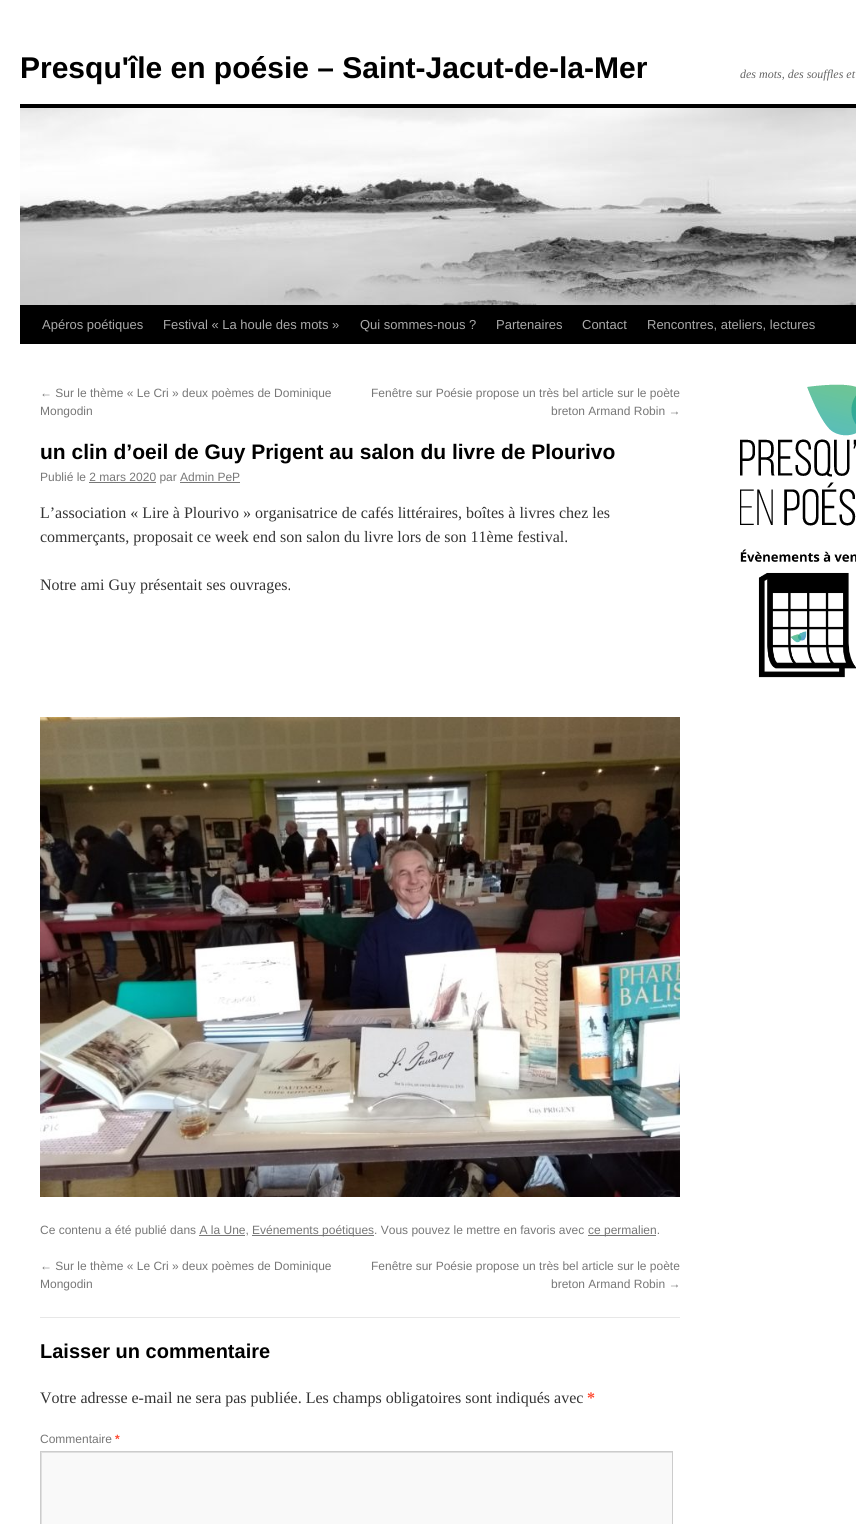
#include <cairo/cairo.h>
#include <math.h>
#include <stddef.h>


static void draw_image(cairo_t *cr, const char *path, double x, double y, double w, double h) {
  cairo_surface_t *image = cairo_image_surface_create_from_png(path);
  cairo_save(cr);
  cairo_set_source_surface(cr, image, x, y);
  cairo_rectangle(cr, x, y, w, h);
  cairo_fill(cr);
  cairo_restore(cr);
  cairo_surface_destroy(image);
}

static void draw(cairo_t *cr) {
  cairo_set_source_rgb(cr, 1, 1, 1);
  cairo_paint(cr);
  cairo_set_source_rgb(cr, 0, 0, 0);
  cairo_rectangle(cr, 20, 104, 836, 4);
  cairo_fill(cr);
  cairo_rectangle(cr, 20, 305, 836, 39);
  cairo_fill(cr);
  draw_image(cr, "images/1.png", 20, 108, 836, 197);
  cairo_set_source_rgb(cr, 119 / 255.0, 119 / 255.0, 119 / 255.0);
  cairo_rectangle(cr, 89, 482, 67, 1);
  cairo_fill(cr);
  cairo_rectangle(cr, 180, 482, 60, 1);
  cairo_fill(cr);
  draw_image(cr, "images/2.png", 40, 717, 640, 480);
  cairo_rectangle(cr, 252, 1235, 122, 1);
  cairo_fill(cr);
  cairo_rectangle(cr, 588, 1235, 68, 1);
  cairo_fill(cr);
  cairo_rectangle(cr, 199, 1235, 46, 1);
  cairo_fill(cr);
  cairo_set_source_rgb(cr, 231 / 255.0, 231 / 255.0, 231 / 255.0);
  cairo_rectangle(cr, 40, 1317, 640, 1);
  cairo_fill(cr);
  cairo_set_source_rgb(cr, 249 / 255.0, 249 / 255.0, 249 / 255.0);
  cairo_rectangle(cr, 42, 1453, 630, 71);
  cairo_fill(cr);
  cairo_save(cr);
  cairo_rectangle(cr, 41, 1452, 631, 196);
  cairo_clip(cr);
  cairo_set_source_rgb(cr, 224 / 255.0, 224 / 255.0, 224 / 255.0);
  cairo_set_fill_rule(cr, CAIRO_FILL_RULE_EVEN_ODD);
  cairo_new_path(cr);
  cairo_move_to(cr, -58, 1353);
  cairo_line_to(cr, 771, 1353);
  cairo_line_to(cr, 771, 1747);
  cairo_line_to(cr, -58, 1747);
  cairo_close_path(cr);
  cairo_move_to(cr, 42, 1453);
  cairo_line_to(cr, 673, 1453);
  cairo_line_to(cr, 673, 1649);
  cairo_line_to(cr, 42, 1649);
  cairo_close_path(cr);
  cairo_fill(cr);
  cairo_restore(cr);
  cairo_rectangle(cr, 40.5, 1451.5, 632, 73);
  cairo_set_source_rgb(cr, 204 / 255.0, 204 / 255.0, 204 / 255.0);
  cairo_set_line_width(cr, 1);
  cairo_stroke(cr);
  draw_image(cr, "images/3.png", 740, 384, 116, 142);
  draw_image(cr, "images/4.png", 740, 549, 116, 129);
  cairo_select_font_face(cr, "Liberation Sans", CAIRO_FONT_SLANT_NORMAL, CAIRO_FONT_WEIGHT_BOLD);
  cairo_set_font_size(cr, 30);
  cairo_set_source_rgb(cr, 0, 0, 0);
  cairo_move_to(cr, 20, 78);
  cairo_show_text(cr, "Presqu'île en poésie – Saint-Jacut-de-la-Mer");
  cairo_select_font_face(cr, "Liberation Serif", CAIRO_FONT_SLANT_ITALIC, CAIRO_FONT_WEIGHT_NORMAL);
  cairo_set_font_size(cr, 12);
  cairo_set_source_rgb(cr, 102 / 255.0, 102 / 255.0, 102 / 255.0);
  cairo_move_to(cr, 740, 78);
  cairo_show_text(cr, "des mots, des souffles et");
  cairo_select_font_face(cr, "Liberation Sans", CAIRO_FONT_SLANT_NORMAL, CAIRO_FONT_WEIGHT_NORMAL);
  cairo_set_font_size(cr, 13);
  cairo_set_source_rgb(cr, 170 / 255.0, 170 / 255.0, 170 / 255.0);
  cairo_move_to(cr, 42, 329);
  cairo_show_text(cr, "Apéros poétiques");
  cairo_move_to(cr, 163, 329);
  cairo_show_text(cr, "Festival « La houle des mots »");
  cairo_move_to(cr, 360, 329);
  cairo_show_text(cr, "Qui sommes-nous ?");
  cairo_move_to(cr, 496, 329);
  cairo_show_text(cr, "Partenaires");
  cairo_move_to(cr, 582, 329);
  cairo_show_text(cr, "Contact");
  cairo_move_to(cr, 647, 329);
  cairo_show_text(cr, "Rencontres, ateliers, lectures");
  cairo_set_font_size(cr, 12);
  cairo_set_source_rgb(cr, 119 / 255.0, 119 / 255.0, 119 / 255.0);
  cairo_move_to(cr, 40, 397);
  cairo_show_text(cr, "← Sur le thème « Le Cri » deux poèmes de Dominique");
  cairo_move_to(cr, 40, 415);
  cairo_show_text(cr, "Mongodin");
  cairo_move_to(cr, 371, 397);
  cairo_show_text(cr, "Fenêtre sur Poésie propose un très bel article sur le poète");
  cairo_move_to(cr, 551, 415);
  cairo_show_text(cr, "breton Armand Robin →");
  cairo_select_font_face(cr, "Liberation Sans", CAIRO_FONT_SLANT_NORMAL, CAIRO_FONT_WEIGHT_BOLD);
  cairo_set_font_size(cr, 21);
  cairo_set_source_rgb(cr, 0, 0, 0);
  cairo_move_to(cr, 40, 459);
  cairo_show_text(cr, "un clin d’oeil de Guy Prigent au salon du livre de Plourivo");
  cairo_select_font_face(cr, "Liberation Sans", CAIRO_FONT_SLANT_NORMAL, CAIRO_FONT_WEIGHT_NORMAL);
  cairo_set_font_size(cr, 12);
  cairo_set_source_rgb(cr, 119 / 255.0, 119 / 255.0, 119 / 255.0);
  cairo_move_to(cr, 40, 481);
  cairo_show_text(cr, "Publié le 2 mars 2020 par Admin PeP");
  cairo_select_font_face(cr, "Liberation Serif", CAIRO_FONT_SLANT_NORMAL, CAIRO_FONT_WEIGHT_NORMAL);
  cairo_set_font_size(cr, 16);
  cairo_set_source_rgb(cr, 51 / 255.0, 51 / 255.0, 51 / 255.0);
  cairo_move_to(cr, 40, 518);
  cairo_show_text(cr, "L’association « Lire à Plourivo » organisatrice de cafés littéraires, boîtes à livres chez les");
  cairo_move_to(cr, 40, 542);
  cairo_show_text(cr, "commerçants, proposait ce week end son salon du livre lors de son 11ème festival.");
  cairo_move_to(cr, 40, 590);
  cairo_show_text(cr, "Notre ami Guy présentait ses ouvrages.");
  cairo_select_font_face(cr, "Liberation Sans", CAIRO_FONT_SLANT_NORMAL, CAIRO_FONT_WEIGHT_NORMAL);
  cairo_set_font_size(cr, 12);
  cairo_set_source_rgb(cr, 119 / 255.0, 119 / 255.0, 119 / 255.0);
  cairo_move_to(cr, 40, 1234);
  cairo_show_text(cr, "Ce contenu a été publié dans A la Une,");
  cairo_move_to(cr, 252, 1234);
  cairo_show_text(cr, "Evénements poétiques. Vous pouvez le mettre en favoris avec");
  cairo_move_to(cr, 588, 1234);
  cairo_show_text(cr, "ce permalien.");
  cairo_move_to(cr, 40, 1270);
  cairo_show_text(cr, "← Sur le thème « Le Cri » deux poèmes de Dominique");
  cairo_move_to(cr, 40, 1288);
  cairo_show_text(cr, "Mongodin");
  cairo_move_to(cr, 371, 1270);
  cairo_show_text(cr, "Fenêtre sur Poésie propose un très bel article sur le poète");
  cairo_move_to(cr, 551, 1288);
  cairo_show_text(cr, "breton Armand Robin →");
  cairo_select_font_face(cr, "Liberation Sans", CAIRO_FONT_SLANT_NORMAL, CAIRO_FONT_WEIGHT_BOLD);
  cairo_set_font_size(cr, 20);
  cairo_set_source_rgb(cr, 0, 0, 0);
  cairo_move_to(cr, 40, 1358);
  cairo_show_text(cr, "Laisser un commentaire");
  cairo_select_font_face(cr, "Liberation Serif", CAIRO_FONT_SLANT_NORMAL, CAIRO_FONT_WEIGHT_NORMAL);
  cairo_set_font_size(cr, 16);
  cairo_set_source_rgb(cr, 51 / 255.0, 51 / 255.0, 51 / 255.0);
  cairo_move_to(cr, 40, 1403);
  cairo_show_text(cr, "Votre adresse e-mail ne sera pas publiée. Les champs obligatoires sont indiqués avec");
  cairo_select_font_face(cr, "Liberation Serif", CAIRO_FONT_SLANT_NORMAL, CAIRO_FONT_WEIGHT_BOLD);
  cairo_set_source_rgb(cr, 1, 75 / 255.0, 51 / 255.0);
  cairo_move_to(cr, 587, 1403);
  cairo_show_text(cr, "*");
  cairo_select_font_face(cr, "Liberation Sans", CAIRO_FONT_SLANT_NORMAL, CAIRO_FONT_WEIGHT_NORMAL);
  cairo_set_font_size(cr, 12);
  cairo_set_source_rgb(cr, 119 / 255.0, 119 / 255.0, 119 / 255.0);
  cairo_move_to(cr, 40, 1443);
  cairo_show_text(cr, "Commentaire");
  cairo_select_font_face(cr, "Liberation Sans", CAIRO_FONT_SLANT_NORMAL, CAIRO_FONT_WEIGHT_BOLD);
  cairo_set_source_rgb(cr, 1, 75 / 255.0, 51 / 255.0);
  cairo_move_to(cr, 115, 1443);
  cairo_show_text(cr, "*");
}

int main(void) {
  cairo_surface_t *surface = cairo_image_surface_create(CAIRO_FORMAT_RGB24, 856, 1524);
  cairo_t *cr = cairo_create(surface);
  cairo_font_options_t *options = cairo_font_options_create();
  cairo_font_options_set_hint_metrics(options, CAIRO_HINT_METRICS_OFF);
  cairo_font_options_set_hint_style(options, CAIRO_HINT_STYLE_NONE);
  cairo_set_font_options(cr, options);
  cairo_set_miter_limit(cr, 4);
  draw(cr);
  cairo_surface_write_to_png(surface, "out.png");
  cairo_font_options_destroy(options);
  cairo_destroy(cr);
  cairo_surface_destroy(surface);
  return 0;
}
